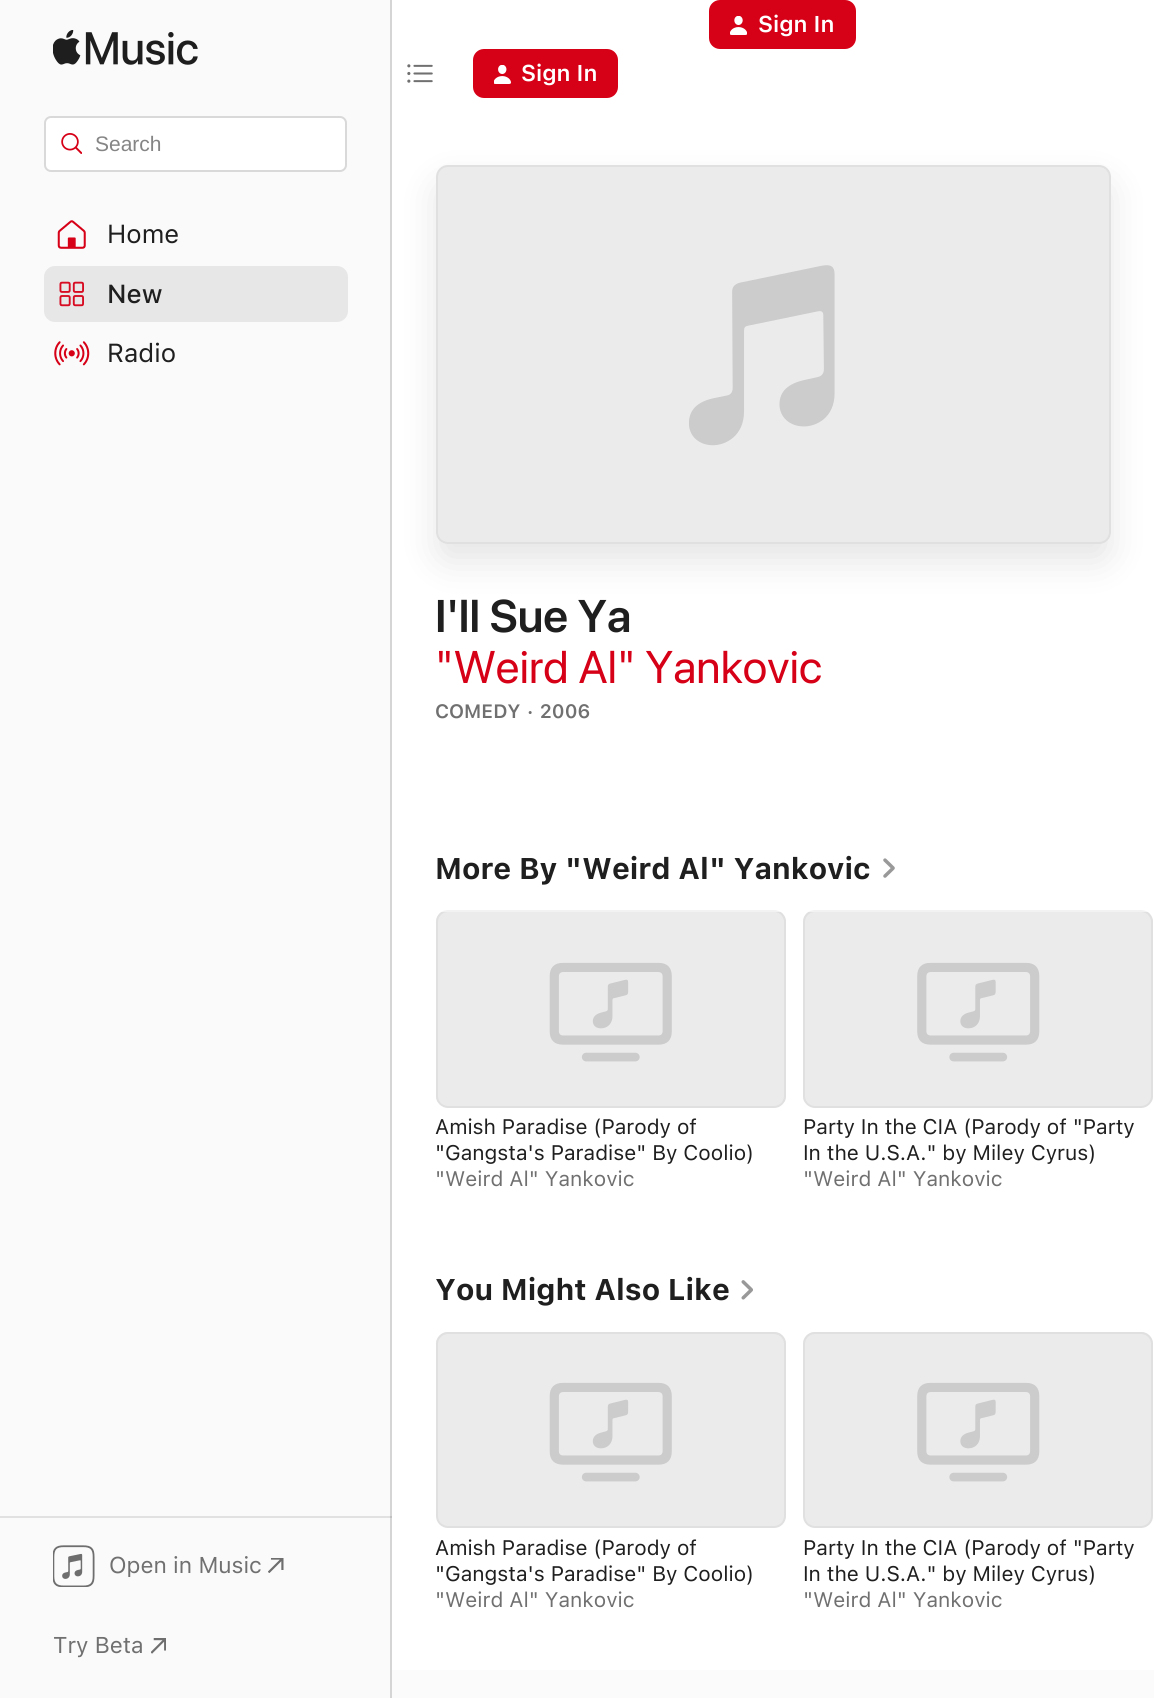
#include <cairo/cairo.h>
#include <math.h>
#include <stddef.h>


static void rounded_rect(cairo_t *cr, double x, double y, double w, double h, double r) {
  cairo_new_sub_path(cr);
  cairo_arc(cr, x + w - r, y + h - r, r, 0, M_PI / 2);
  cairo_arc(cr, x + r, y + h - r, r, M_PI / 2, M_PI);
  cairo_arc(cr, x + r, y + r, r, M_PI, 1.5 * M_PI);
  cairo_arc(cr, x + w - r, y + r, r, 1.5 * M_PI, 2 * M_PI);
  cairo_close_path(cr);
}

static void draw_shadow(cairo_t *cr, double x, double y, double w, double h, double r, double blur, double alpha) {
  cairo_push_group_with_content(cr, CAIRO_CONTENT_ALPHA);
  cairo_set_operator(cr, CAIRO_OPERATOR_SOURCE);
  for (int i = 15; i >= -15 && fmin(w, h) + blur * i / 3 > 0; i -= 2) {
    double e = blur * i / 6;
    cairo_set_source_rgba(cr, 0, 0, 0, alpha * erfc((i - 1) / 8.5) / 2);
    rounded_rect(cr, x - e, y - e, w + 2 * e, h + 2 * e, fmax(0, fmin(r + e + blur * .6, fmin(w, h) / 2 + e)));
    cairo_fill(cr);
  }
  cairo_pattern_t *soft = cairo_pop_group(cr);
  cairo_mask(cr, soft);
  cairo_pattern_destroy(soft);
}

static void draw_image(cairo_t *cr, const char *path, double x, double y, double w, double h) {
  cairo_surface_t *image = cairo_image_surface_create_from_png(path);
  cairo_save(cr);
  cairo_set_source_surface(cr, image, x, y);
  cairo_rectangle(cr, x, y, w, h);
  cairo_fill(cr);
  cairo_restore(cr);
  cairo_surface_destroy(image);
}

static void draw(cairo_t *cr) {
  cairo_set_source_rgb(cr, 1, 1, 1);
  cairo_paint(cr);
  cairo_set_source_rgb(cr, 214 / 255.0, 0, 23 / 255.0);
  rounded_rect(cr, 709, 0, 147, 49, 11);
  cairo_fill(cr);
  draw_image(cr, "images/1.png", 730, 16, 17, 19);
  draw_image(cr, "images/2.png", 407, 64, 26, 19);
  rounded_rect(cr, 473, 49, 145, 49, 11);
  cairo_fill(cr);
  draw_image(cr, "images/3.png", 494, 65, 17, 19);
  cairo_set_source_rgb(cr, 0, 0, 0);
  draw_shadow(cr, 436, 182, 675, 380, 12, 17.5, 0.1);
  cairo_set_source_rgb(cr, 250 / 255.0, 250 / 255.0, 250 / 255.0);
  cairo_rectangle(cr, 0, 0, 390, 1698);
  cairo_fill(cr);
  cairo_set_source_rgb(cr, 225 / 255.0, 225 / 255.0, 225 / 255.0);
  cairo_rectangle(cr, 0, 1516, 392, 2);
  cairo_fill(cr);
  cairo_set_source_rgb(cr, 213 / 255.0, 213 / 255.0, 213 / 255.0);
  cairo_rectangle(cr, 390, 0, 2, 1698);
  cairo_fill(cr);
  cairo_set_source_rgb(cr, 192 / 255.0, 192 / 255.0, 192 / 255.0);
  cairo_rectangle(cr, 390, 1516, 2, 2);
  cairo_fill(cr);
  draw_image(cr, "images/4.png", 53, 30, 145, 35);
  cairo_set_source_rgb(cr, 1, 1, 1);
  rounded_rect(cr, 45, 117, 301, 54, 6);
  cairo_fill_preserve(cr);
  cairo_set_source_rgb(cr, 217 / 255.0, 217 / 255.0, 217 / 255.0);
  cairo_stroke(cr);
  draw_image(cr, "images/5.png", 61, 133, 21, 21);
  draw_image(cr, "images/6.png", 57, 220, 29, 29);
  cairo_set_source_rgb(cr, 231 / 255.0, 231 / 255.0, 232 / 255.0);
  rounded_rect(cr, 44, 266, 304, 56, 11);
  cairo_fill(cr);
  draw_image(cr, "images/7.png", 59, 281, 25, 26);
  draw_image(cr, "images/8.png", 54, 341, 36, 25);
  draw_image(cr, "images/9.png", 53, 1545, 42, 42);
  draw_image(cr, "images/10.png", 268, 1558, 16, 15);
  draw_image(cr, "images/11.png", 151, 1638, 15, 16);
  cairo_set_source_rgb(cr, 235 / 255.0, 235 / 255.0, 235 / 255.0);
  rounded_rect(cr, 436, 165, 675, 379, 12);
  cairo_fill(cr);
  draw_image(cr, "images/12.png", 689, 265, 146, 181);
  rounded_rect(cr, 437, 166, 673, 377, 11);
  cairo_set_source_rgba(cr, 128 / 255.0, 128 / 255.0, 128 / 255.0, 0.1);
  cairo_stroke(cr);
  draw_image(cr, "images/13.png", 883, 858, 12, 20);
  cairo_save(cr);
  rounded_rect(cr, 436, 910, 350, 198, 12);
  cairo_clip(cr);
  cairo_set_source_rgb(cr, 235 / 255.0, 235 / 255.0, 235 / 255.0);
  cairo_new_path(cr);
  cairo_move_to(cr, 436, 912);
  cairo_line_to(cr, 786, 912);
  cairo_line_to(cr, 786, 1096);
  cairo_curve_to(cr, 786, 1102.5, 780.5, 1108, 774, 1108);
  cairo_line_to(cr, 448, 1108);
  cairo_curve_to(cr, 441.5, 1108, 436, 1102.5, 436, 1096);
  cairo_close_path(cr);
  cairo_fill(cr);
  cairo_restore(cr);
  draw_image(cr, "images/14.png", 436, 912, 350, 190);
  rounded_rect(cr, 437, 911, 348, 196, 11);
  cairo_stroke(cr);
  cairo_save(cr);
  rounded_rect(cr, 803, 910, 350, 198, 12);
  cairo_clip(cr);
  cairo_set_source_rgb(cr, 235 / 255.0, 235 / 255.0, 235 / 255.0);
  cairo_new_path(cr);
  cairo_move_to(cr, 803, 912);
  cairo_line_to(cr, 1153, 912);
  cairo_line_to(cr, 1153, 1096);
  cairo_curve_to(cr, 1153, 1102.5, 1147.5, 1108, 1141, 1108);
  cairo_line_to(cr, 815, 1108);
  cairo_curve_to(cr, 808.5, 1108, 803, 1102.5, 803, 1096);
  cairo_close_path(cr);
  cairo_fill(cr);
  cairo_restore(cr);
  draw_image(cr, "images/15.png", 803, 912, 350, 190);
  rounded_rect(cr, 804, 911, 348, 196, 11);
  cairo_stroke(cr);
  draw_image(cr, "images/16.png", 741, 1280, 12, 20);
  cairo_set_source_rgb(cr, 235 / 255.0, 235 / 255.0, 235 / 255.0);
  rounded_rect(cr, 436, 1332, 350, 196, 12);
  cairo_fill(cr);
  draw_image(cr, "images/17.png", 436, 1332, 350, 150);
  rounded_rect(cr, 437, 1333, 348, 194, 11);
  cairo_set_source_rgba(cr, 128 / 255.0, 128 / 255.0, 128 / 255.0, 0.1);
  cairo_stroke(cr);
  cairo_set_source_rgb(cr, 235 / 255.0, 235 / 255.0, 235 / 255.0);
  rounded_rect(cr, 803, 1332, 350, 196, 12);
  cairo_fill(cr);
  draw_image(cr, "images/18.png", 803, 1332, 350, 150);
  rounded_rect(cr, 804, 1333, 348, 194, 11);
  cairo_set_source_rgba(cr, 128 / 255.0, 128 / 255.0, 128 / 255.0, 0.1);
  cairo_stroke(cr);
  cairo_set_source_rgb(cr, 251 / 255.0, 251 / 255.0, 251 / 255.0);
  cairo_rectangle(cr, 392, 1670, 762, 28);
  cairo_fill(cr);
  cairo_select_font_face(cr, "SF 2 SemiBold", CAIRO_FONT_SLANT_NORMAL, CAIRO_FONT_WEIGHT_NORMAL);
  cairo_set_font_size(cr, 22.75);
  cairo_set_source_rgb(cr, 1, 1, 1);
  cairo_move_to(cr, 758, 32);
  cairo_show_text(cr, "Sign In");
  cairo_move_to(cr, 521, 81);
  cairo_show_text(cr, "Sign In");
  cairo_select_font_face(cr, "Liberation Sans", CAIRO_FONT_SLANT_NORMAL, CAIRO_FONT_WEIGHT_NORMAL);
  cairo_set_font_size(cr, 21);
  cairo_set_source_rgb(cr, 133 / 255.0, 133 / 255.0, 133 / 255.0);
  cairo_move_to(cr, 95, 151);
  cairo_show_text(cr, "Search");
  cairo_select_font_face(cr, "SF 2", CAIRO_FONT_SLANT_NORMAL, CAIRO_FONT_WEIGHT_NORMAL);
  cairo_set_font_size(cr, 26);
  cairo_set_source_rgb(cr, 31 / 255.0, 31 / 255.0, 31 / 255.0);
  cairo_move_to(cr, 107, 243);
  cairo_show_text(cr, "Home");
  cairo_select_font_face(cr, "SF Medium", CAIRO_FONT_SLANT_NORMAL, CAIRO_FONT_WEIGHT_NORMAL);
  cairo_move_to(cr, 107, 303);
  cairo_show_text(cr, "New");
  cairo_select_font_face(cr, "SF 2", CAIRO_FONT_SLANT_NORMAL, CAIRO_FONT_WEIGHT_NORMAL);
  cairo_move_to(cr, 107, 362);
  cairo_show_text(cr, "Radio");
  cairo_set_font_size(cr, 22.75);
  cairo_set_source_rgb(cr, 112 / 255.0, 112 / 255.0, 112 / 255.0);
  cairo_move_to(cr, 109, 1573);
  cairo_show_text(cr, "Open in Music");
  cairo_move_to(cr, 53, 1653);
  cairo_show_text(cr, "Try Beta");
  cairo_select_font_face(cr, "SF SemiBold", CAIRO_FONT_SLANT_NORMAL, CAIRO_FONT_WEIGHT_NORMAL);
  cairo_set_font_size(cr, 45.5);
  cairo_set_source_rgb(cr, 31 / 255.0, 31 / 255.0, 31 / 255.0);
  cairo_move_to(cr, 435, 632);
  cairo_show_text(cr, "I'll Sue Ya");
  cairo_select_font_face(cr, "SF", CAIRO_FONT_SLANT_NORMAL, CAIRO_FONT_WEIGHT_NORMAL);
  cairo_set_source_rgb(cr, 214 / 255.0, 0, 23 / 255.0);
  cairo_move_to(cr, 435, 683);
  cairo_show_text(cr, "\"Weird Al\" Yankovic");
  cairo_select_font_face(cr, "SF 2 SemiBold", CAIRO_FONT_SLANT_NORMAL, CAIRO_FONT_WEIGHT_NORMAL);
  cairo_set_font_size(cr, 19.25);
  cairo_set_source_rgb(cr, 112 / 255.0, 112 / 255.0, 112 / 255.0);
  cairo_move_to(cr, 435, 718);
  cairo_show_text(cr, "COMEDY · 2006");
  cairo_select_font_face(cr, "SF", CAIRO_FONT_SLANT_NORMAL, CAIRO_FONT_WEIGHT_BOLD);
  cairo_set_font_size(cr, 29.75);
  cairo_set_source_rgb(cr, 31 / 255.0, 31 / 255.0, 31 / 255.0);
  cairo_move_to(cr, 435, 879);
  cairo_show_text(cr, "More By \"Weird Al\" Yankovic");
  cairo_select_font_face(cr, "SF 2", CAIRO_FONT_SLANT_NORMAL, CAIRO_FONT_WEIGHT_NORMAL);
  cairo_set_font_size(cr, 21);
  cairo_move_to(cr, 435, 1134);
  cairo_show_text(cr, "Amish Paradise (Parody of");
  cairo_move_to(cr, 435, 1160);
  cairo_show_text(cr, "\"Gangsta's Paradise\" By Coolio)");
  cairo_set_source_rgb(cr, 112 / 255.0, 112 / 255.0, 112 / 255.0);
  cairo_move_to(cr, 435, 1186);
  cairo_show_text(cr, "\"Weird Al\" Yankovic");
  cairo_set_source_rgb(cr, 31 / 255.0, 31 / 255.0, 31 / 255.0);
  cairo_move_to(cr, 803, 1134);
  cairo_show_text(cr, "Party In the CIA (Parody of \"Party");
  cairo_move_to(cr, 803, 1160);
  cairo_show_text(cr, "In the U.S.A.\" by Miley Cyrus)");
  cairo_set_source_rgb(cr, 112 / 255.0, 112 / 255.0, 112 / 255.0);
  cairo_move_to(cr, 803, 1186);
  cairo_show_text(cr, "\"Weird Al\" Yankovic");
  cairo_select_font_face(cr, "SF", CAIRO_FONT_SLANT_NORMAL, CAIRO_FONT_WEIGHT_BOLD);
  cairo_set_font_size(cr, 29.75);
  cairo_set_source_rgb(cr, 31 / 255.0, 31 / 255.0, 31 / 255.0);
  cairo_move_to(cr, 435, 1300);
  cairo_show_text(cr, "You Might Also Like");
  cairo_select_font_face(cr, "SF 2", CAIRO_FONT_SLANT_NORMAL, CAIRO_FONT_WEIGHT_NORMAL);
  cairo_set_font_size(cr, 21);
  cairo_move_to(cr, 435, 1555);
  cairo_show_text(cr, "Amish Paradise (Parody of");
  cairo_move_to(cr, 435, 1581);
  cairo_show_text(cr, "\"Gangsta's Paradise\" By Coolio)");
  cairo_set_source_rgb(cr, 112 / 255.0, 112 / 255.0, 112 / 255.0);
  cairo_move_to(cr, 435, 1607);
  cairo_show_text(cr, "\"Weird Al\" Yankovic");
  cairo_set_source_rgb(cr, 31 / 255.0, 31 / 255.0, 31 / 255.0);
  cairo_move_to(cr, 803, 1555);
  cairo_show_text(cr, "Party In the CIA (Parody of \"Party");
  cairo_move_to(cr, 803, 1581);
  cairo_show_text(cr, "In the U.S.A.\" by Miley Cyrus)");
  cairo_set_source_rgb(cr, 112 / 255.0, 112 / 255.0, 112 / 255.0);
  cairo_move_to(cr, 803, 1607);
  cairo_show_text(cr, "\"Weird Al\" Yankovic");
}

int main(void) {
  cairo_surface_t *surface = cairo_image_surface_create(CAIRO_FORMAT_RGB24, 1154, 1698);
  cairo_t *cr = cairo_create(surface);
  cairo_font_options_t *options = cairo_font_options_create();
  cairo_font_options_set_hint_metrics(options, CAIRO_HINT_METRICS_OFF);
  cairo_font_options_set_hint_style(options, CAIRO_HINT_STYLE_NONE);
  cairo_set_font_options(cr, options);
  cairo_set_miter_limit(cr, 4);
  draw(cr);
  cairo_surface_write_to_png(surface, "out.png");
  cairo_font_options_destroy(options);
  cairo_destroy(cr);
  cairo_surface_destroy(surface);
  return 0;
}
